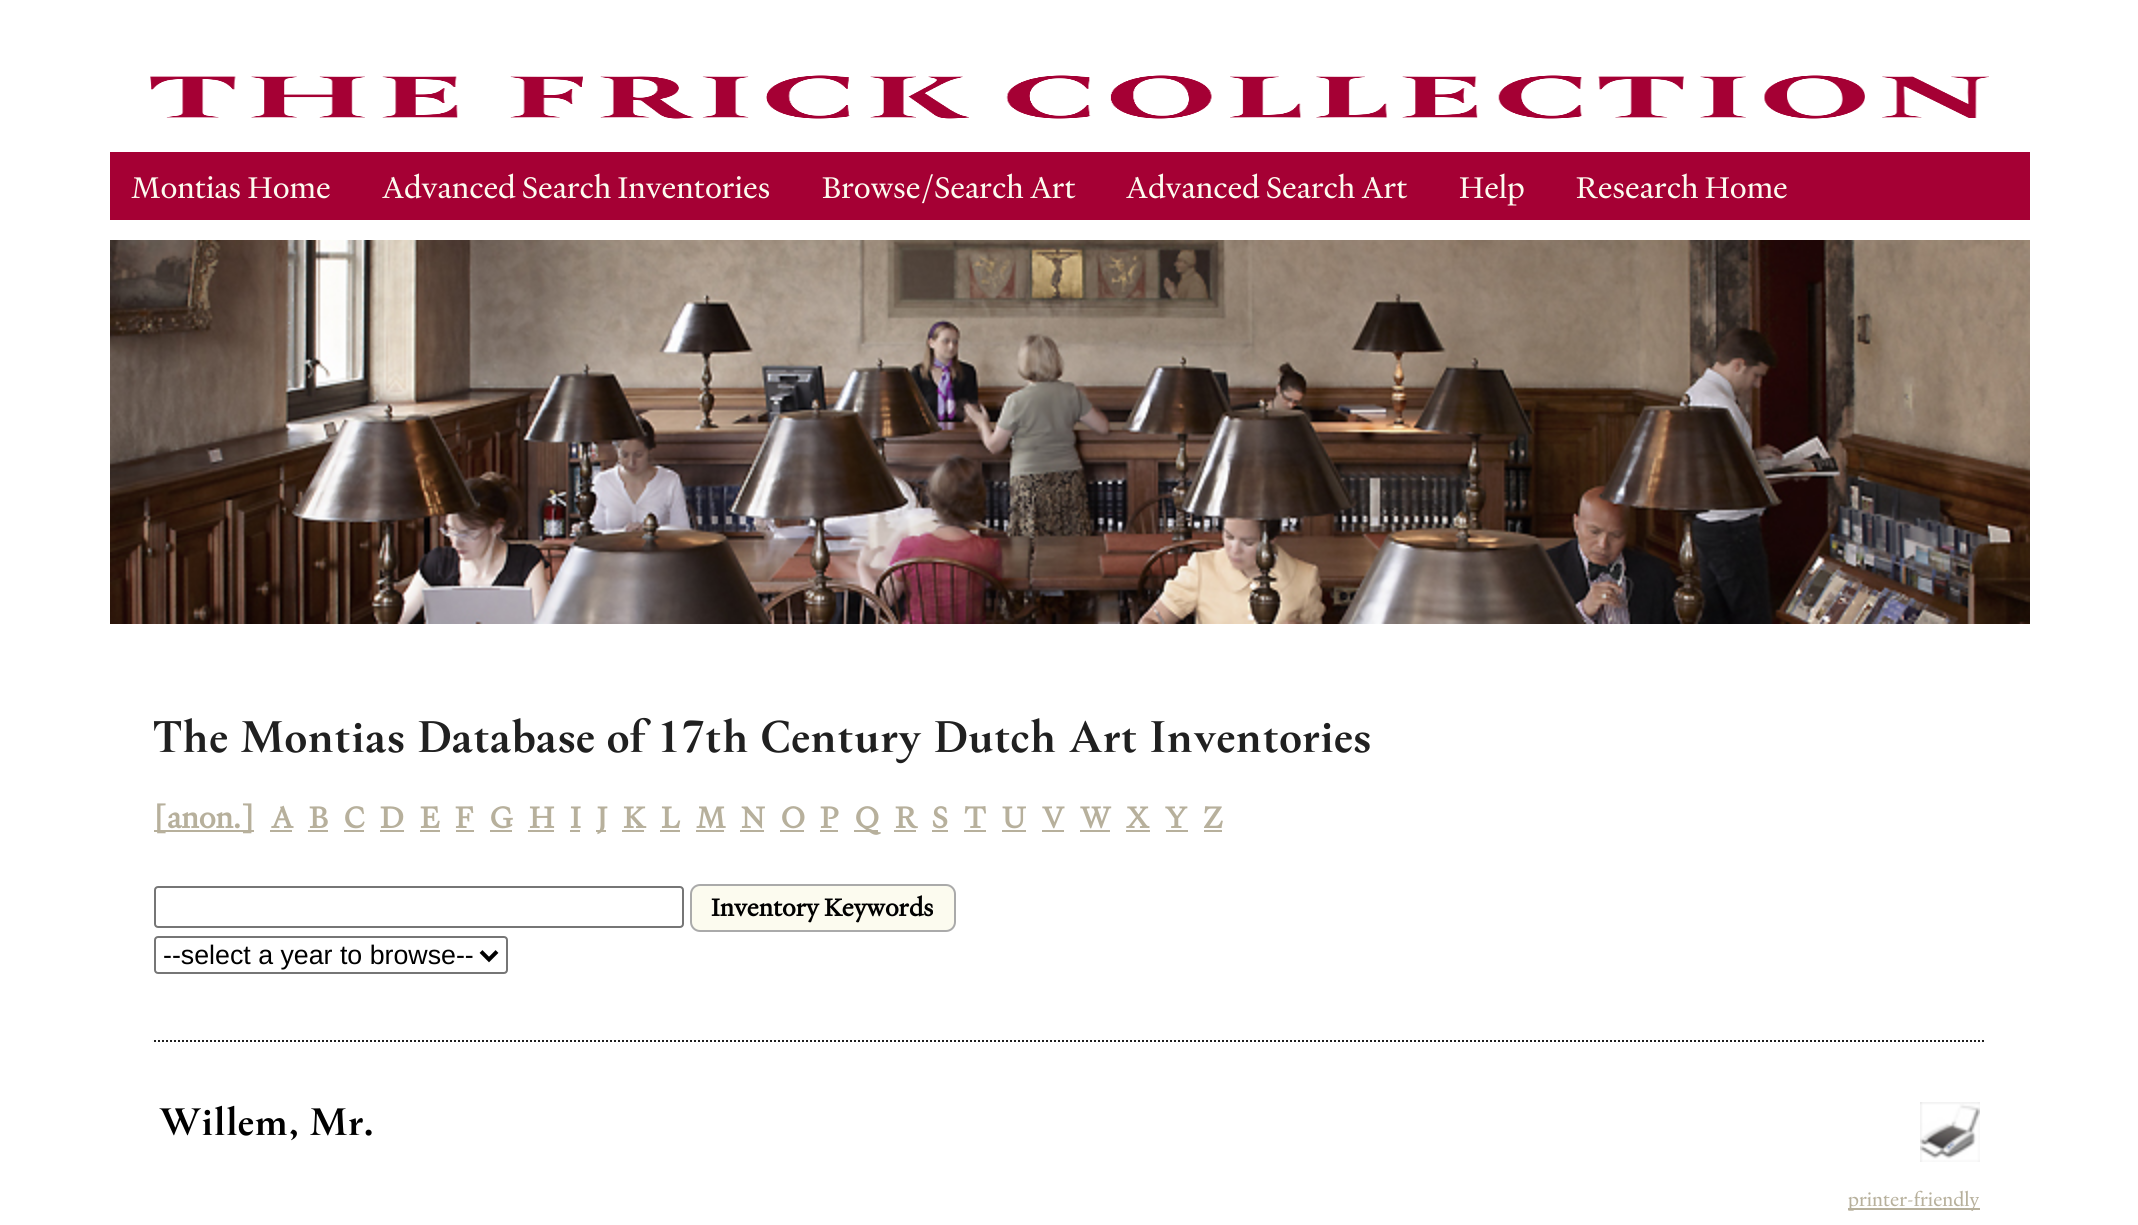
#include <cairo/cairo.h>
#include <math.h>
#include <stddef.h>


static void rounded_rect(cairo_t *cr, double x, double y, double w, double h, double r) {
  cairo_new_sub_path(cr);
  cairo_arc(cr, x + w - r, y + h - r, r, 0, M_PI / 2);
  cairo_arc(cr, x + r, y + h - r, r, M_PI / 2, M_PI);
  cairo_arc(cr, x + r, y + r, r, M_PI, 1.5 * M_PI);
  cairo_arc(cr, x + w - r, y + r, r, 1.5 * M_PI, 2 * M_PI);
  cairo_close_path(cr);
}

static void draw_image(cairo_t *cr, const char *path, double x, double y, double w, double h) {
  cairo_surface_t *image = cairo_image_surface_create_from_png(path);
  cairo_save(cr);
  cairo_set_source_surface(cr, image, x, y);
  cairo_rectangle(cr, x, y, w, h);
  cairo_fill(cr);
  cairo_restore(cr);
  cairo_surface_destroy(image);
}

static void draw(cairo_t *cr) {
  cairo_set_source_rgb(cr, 1, 1, 1);
  cairo_paint(cr);
  draw_image(cr, "images/1.png", 150, 75, 1839, 44);
  cairo_set_source_rgb(cr, 165 / 255.0, 0, 52 / 255.0);
  cairo_rectangle(cr, 110, 152, 1920, 68);
  cairo_fill(cr);
  draw_image(cr, "images/2.png", 110, 240, 1920, 384);
  cairo_new_path(cr);
  cairo_move_to(cr, 154, 1041);
  cairo_line_to(cr, 1986, 1041);
  cairo_set_source_rgb(cr, 32 / 255.0, 32 / 255.0, 32 / 255.0);
  cairo_set_dash(cr, (double[]){2, 2}, 2, 0);
  cairo_stroke(cr);
  cairo_set_source_rgb(cr, 183 / 255.0, 176 / 255.0, 156 / 255.0);
  cairo_rectangle(cr, 154, 830, 100, 2);
  cairo_fill(cr);
  cairo_rectangle(cr, 270, 830, 22, 2);
  cairo_fill(cr);
  cairo_rectangle(cr, 308, 830, 20, 2);
  cairo_fill(cr);
  cairo_rectangle(cr, 344, 830, 20, 2);
  cairo_fill(cr);
  cairo_rectangle(cr, 380, 830, 24, 2);
  cairo_fill(cr);
  cairo_rectangle(cr, 420, 830, 20, 2);
  cairo_fill(cr);
  cairo_rectangle(cr, 456, 830, 18, 2);
  cairo_fill(cr);
  cairo_rectangle(cr, 490, 830, 22, 2);
  cairo_fill(cr);
  cairo_rectangle(cr, 528, 830, 26, 2);
  cairo_fill(cr);
  cairo_rectangle(cr, 570, 830, 10, 2);
  cairo_fill(cr);
  cairo_rectangle(cr, 596, 830, 10, 2);
  cairo_fill(cr);
  cairo_rectangle(cr, 622, 830, 22, 2);
  cairo_fill(cr);
  cairo_rectangle(cr, 660, 830, 20, 2);
  cairo_fill(cr);
  cairo_rectangle(cr, 696, 830, 28, 2);
  cairo_fill(cr);
  cairo_rectangle(cr, 740, 830, 24, 2);
  cairo_fill(cr);
  cairo_rectangle(cr, 780, 830, 24, 2);
  cairo_fill(cr);
  cairo_rectangle(cr, 820, 830, 18, 2);
  cairo_fill(cr);
  cairo_rectangle(cr, 854, 830, 24, 2);
  cairo_fill(cr);
  cairo_rectangle(cr, 894, 830, 22, 2);
  cairo_fill(cr);
  cairo_rectangle(cr, 932, 830, 16, 2);
  cairo_fill(cr);
  cairo_rectangle(cr, 964, 830, 22, 2);
  cairo_fill(cr);
  cairo_rectangle(cr, 1002, 830, 24, 2);
  cairo_fill(cr);
  cairo_rectangle(cr, 1042, 830, 22, 2);
  cairo_fill(cr);
  cairo_rectangle(cr, 1080, 830, 30, 2);
  cairo_fill(cr);
  cairo_rectangle(cr, 1126, 830, 24, 2);
  cairo_fill(cr);
  cairo_rectangle(cr, 1166, 830, 22, 2);
  cairo_fill(cr);
  cairo_rectangle(cr, 1204, 830, 18, 2);
  cairo_fill(cr);
  rounded_rect(cr, 155, 887, 528, 40, 3);
  cairo_set_source_rgb(cr, 118 / 255.0, 118 / 255.0, 118 / 255.0);
  cairo_set_dash(cr, NULL, 0, 0);
  cairo_stroke(cr);
  cairo_set_source_rgb(cr, 252 / 255.0, 251 / 255.0, 239 / 255.0);
  rounded_rect(cr, 691, 885, 264, 46, 9);
  cairo_fill_preserve(cr);
  cairo_set_source_rgb(cr, 170 / 255.0, 170 / 255.0, 170 / 255.0);
  cairo_stroke(cr);
  rounded_rect(cr, 155, 937, 352, 36, 3);
  cairo_set_source_rgb(cr, 118 / 255.0, 118 / 255.0, 118 / 255.0);
  cairo_stroke(cr);
  cairo_new_path(cr);
  cairo_move_to(cr, 481, 951.5);
  cairo_line_to(cr, 489, 959.5);
  cairo_line_to(cr, 497, 951.5);
  cairo_set_source_rgb(cr, 0, 0, 0);
  cairo_set_line_width(cr, 4);
  cairo_stroke(cr);
  draw_image(cr, "images/3.png", 1920, 1102, 60, 60);
  cairo_set_source_rgb(cr, 183 / 255.0, 176 / 255.0, 156 / 255.0);
  cairo_rectangle(cr, 1848, 1208, 132, 2);
  cairo_fill(cr);
  cairo_select_font_face(cr, "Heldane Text", CAIRO_FONT_SLANT_NORMAL, CAIRO_FONT_WEIGHT_NORMAL);
  cairo_set_font_size(cr, 32);
  cairo_set_source_rgb(cr, 252 / 255.0, 251 / 255.0, 239 / 255.0);
  cairo_move_to(cr, 131, 198);
  cairo_show_text(cr, "Montias Home");
  cairo_move_to(cr, 382, 198);
  cairo_show_text(cr, "Advanced Search Inventories");
  cairo_move_to(cr, 822, 198);
  cairo_show_text(cr, "Browse/Search Art");
  cairo_move_to(cr, 1126, 198);
  cairo_show_text(cr, "Advanced Search Art");
  cairo_move_to(cr, 1459, 198);
  cairo_show_text(cr, "Help");
  cairo_move_to(cr, 1576, 198);
  cairo_show_text(cr, "Research Home");
  cairo_select_font_face(cr, "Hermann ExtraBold", CAIRO_FONT_SLANT_NORMAL, CAIRO_FONT_WEIGHT_NORMAL);
  cairo_set_font_size(cr, 48);
  cairo_set_source_rgb(cr, 32 / 255.0, 32 / 255.0, 32 / 255.0);
  cairo_move_to(cr, 153, 752);
  cairo_show_text(cr, "The Montias Database of 17th Century Dutch Art Inventories");
  cairo_select_font_face(cr, "Heldane Text", CAIRO_FONT_SLANT_NORMAL, CAIRO_FONT_WEIGHT_BOLD);
  cairo_set_font_size(cr, 32);
  cairo_set_source_rgb(cr, 183 / 255.0, 176 / 255.0, 156 / 255.0);
  cairo_move_to(cr, 153, 828);
  cairo_show_text(cr, "[anon.]");
  cairo_move_to(cr, 271, 828);
  cairo_show_text(cr, "A");
  cairo_move_to(cr, 309, 828);
  cairo_show_text(cr, "B");
  cairo_move_to(cr, 344, 828);
  cairo_show_text(cr, "C");
  cairo_move_to(cr, 380, 828);
  cairo_show_text(cr, "D");
  cairo_move_to(cr, 420, 828);
  cairo_show_text(cr, "E");
  cairo_move_to(cr, 455, 828);
  cairo_show_text(cr, "F");
  cairo_move_to(cr, 490, 828);
  cairo_show_text(cr, "G");
  cairo_move_to(cr, 529, 828);
  cairo_show_text(cr, "H");
  cairo_move_to(cr, 570, 828);
  cairo_show_text(cr, "I");
  cairo_move_to(cr, 597, 828);
  cairo_show_text(cr, "J");
  cairo_move_to(cr, 623, 828);
  cairo_show_text(cr, "K");
  cairo_move_to(cr, 661, 828);
  cairo_show_text(cr, "L");
  cairo_move_to(cr, 696, 828);
  cairo_show_text(cr, "M");
  cairo_move_to(cr, 741, 828);
  cairo_show_text(cr, "N");
  cairo_move_to(cr, 781, 828);
  cairo_show_text(cr, "O");
  cairo_move_to(cr, 820, 828);
  cairo_show_text(cr, "P");
  cairo_move_to(cr, 855, 828);
  cairo_show_text(cr, "Q");
  cairo_move_to(cr, 895, 828);
  cairo_show_text(cr, "R");
  cairo_move_to(cr, 932, 828);
  cairo_show_text(cr, "S");
  cairo_move_to(cr, 964, 828);
  cairo_show_text(cr, "T");
  cairo_move_to(cr, 1002, 828);
  cairo_show_text(cr, "U");
  cairo_move_to(cr, 1042, 828);
  cairo_show_text(cr, "V");
  cairo_move_to(cr, 1080, 828);
  cairo_show_text(cr, "W");
  cairo_move_to(cr, 1126, 828);
  cairo_show_text(cr, "X");
  cairo_move_to(cr, 1165, 828);
  cairo_show_text(cr, "Y");
  cairo_move_to(cr, 1203, 828);
  cairo_show_text(cr, "Z");
  cairo_set_font_size(cr, 26);
  cairo_set_source_rgb(cr, 0, 0, 0);
  cairo_move_to(cr, 711, 916);
  cairo_show_text(cr, "Inventory Keywords");
  cairo_select_font_face(cr, "Liberation Sans", CAIRO_FONT_SLANT_NORMAL, CAIRO_FONT_WEIGHT_NORMAL);
  cairo_set_font_size(cr, 26.75);
  cairo_move_to(cr, 163, 964);
  cairo_show_text(cr, "--select a year to browse--");
  cairo_select_font_face(cr, "Hermann ExtraBold", CAIRO_FONT_SLANT_NORMAL, CAIRO_FONT_WEIGHT_NORMAL);
  cairo_set_font_size(cr, 41.5);
  cairo_move_to(cr, 159, 1135);
  cairo_show_text(cr, "Willem, Mr.");
  cairo_select_font_face(cr, "Heldane Text", CAIRO_FONT_SLANT_NORMAL, CAIRO_FONT_WEIGHT_NORMAL);
  cairo_set_font_size(cr, 20);
  cairo_set_source_rgb(cr, 183 / 255.0, 176 / 255.0, 156 / 255.0);
  cairo_move_to(cr, 1848, 1206);
  cairo_show_text(cr, "printer-friendly");
}

int main(void) {
  cairo_surface_t *surface = cairo_image_surface_create(CAIRO_FORMAT_RGB24, 2138, 1225);
  cairo_t *cr = cairo_create(surface);
  cairo_font_options_t *options = cairo_font_options_create();
  cairo_font_options_set_hint_metrics(options, CAIRO_HINT_METRICS_OFF);
  cairo_font_options_set_hint_style(options, CAIRO_HINT_STYLE_NONE);
  cairo_set_font_options(cr, options);
  cairo_set_miter_limit(cr, 4);
  draw(cr);
  cairo_surface_write_to_png(surface, "out.png");
  cairo_font_options_destroy(options);
  cairo_destroy(cr);
  cairo_surface_destroy(surface);
  return 0;
}
